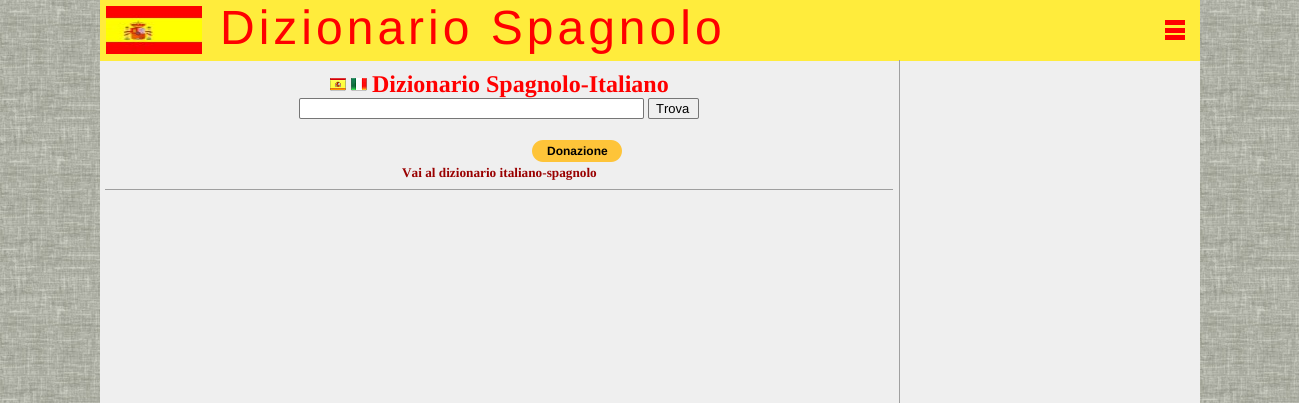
#include <cairo/cairo.h>
#include <math.h>
#include <stddef.h>


static void draw_spaced(cairo_t *cr, double x, double y, const char *s, double letter, double word) {
  cairo_move_to(cr, x, y);
  while (*s) {
    char ch[5] = {0};
    int n = 0;
    do ch[n++] = *s++; while ((*s & 0xC0) == 0x80);
    cairo_show_text(cr, ch);
    cairo_rel_move_to(cr, letter + word * (*ch == ' '), 0);
  }
}

static void rounded_rect(cairo_t *cr, double x, double y, double w, double h, double r) {
  cairo_new_sub_path(cr);
  cairo_arc(cr, x + w - r, y + h - r, r, 0, M_PI / 2);
  cairo_arc(cr, x + r, y + h - r, r, M_PI / 2, M_PI);
  cairo_arc(cr, x + r, y + r, r, M_PI, 1.5 * M_PI);
  cairo_arc(cr, x + w - r, y + r, r, 1.5 * M_PI, 2 * M_PI);
  cairo_close_path(cr);
}

static void draw_image(cairo_t *cr, const char *path, double x, double y, double w, double h) {
  cairo_surface_t *image = cairo_image_surface_create_from_png(path);
  cairo_save(cr);
  cairo_set_source_surface(cr, image, x, y);
  cairo_rectangle(cr, x, y, w, h);
  cairo_fill(cr);
  cairo_restore(cr);
  cairo_surface_destroy(image);
}

static void draw(cairo_t *cr) {
  cairo_set_source_rgb(cr, 1, 1, 1);
  cairo_paint(cr);
  draw_image(cr, "images/1.png", 0, 0, 1299, 403);
  cairo_set_source_rgb(cr, 1, 236 / 255.0, 60 / 255.0);
  cairo_rectangle(cr, 100, 0, 1100, 61);
  cairo_fill(cr);
  draw_image(cr, "images/2.png", 106, 6, 96, 48);
  cairo_set_source_rgb(cr, 1, 0, 0);
  cairo_rectangle(cr, 1165, 35, 20, 5);
  cairo_fill(cr);
  cairo_rectangle(cr, 1165, 28, 20, 5);
  cairo_fill(cr);
  cairo_rectangle(cr, 1165, 20, 20, 5);
  cairo_fill(cr);
  cairo_set_source_rgb(cr, 239 / 255.0, 239 / 255.0, 239 / 255.0);
  cairo_rectangle(cr, 100, 61, 1100, 342);
  cairo_fill(cr);
  draw_image(cr, "images/3.png", 330, 78, 16, 13);
  draw_image(cr, "images/4.png", 351, 78, 16, 13);
  cairo_set_source_rgb(cr, 1, 1, 1);
  rounded_rect(cr, 299.5, 98.5, 344, 20, 1.5);
  cairo_fill_preserve(cr);
  cairo_set_source_rgb(cr, 118 / 255.0, 118 / 255.0, 118 / 255.0);
  cairo_set_line_width(cr, 1);
  cairo_stroke(cr);
  rounded_rect(cr, 648.5, 98.5, 50, 20, 1.5);
  cairo_stroke(cr);
  cairo_set_source_rgb(cr, 254 / 255.0, 196 / 255.0, 57 / 255.0);
  rounded_rect(cr, 532, 140, 90, 22, 11);
  cairo_fill(cr);
  cairo_set_source_rgb(cr, 159 / 255.0, 159 / 255.0, 159 / 255.0);
  cairo_rectangle(cr, 105, 189, 789, 1);
  cairo_fill(cr);
  cairo_set_source_rgb(cr, 238 / 255.0, 238 / 255.0, 238 / 255.0);
  cairo_rectangle(cr, 893, 189, 1, 1);
  cairo_fill(cr);
  cairo_set_source_rgb(cr, 160 / 255.0, 160 / 255.0, 160 / 255.0);
  cairo_rectangle(cr, 899, 60, 1, 343);
  cairo_fill(cr);
  cairo_select_font_face(cr, "Liberation Sans", CAIRO_FONT_SLANT_NORMAL, CAIRO_FONT_WEIGHT_NORMAL);
  cairo_set_font_size(cr, 48);
  cairo_set_source_rgb(cr, 1, 0, 0);
  draw_spaced(cr, 220, 44, "Dizionario Spagnolo", 4, 0);
  cairo_select_font_face(cr, "Liberation Serif", CAIRO_FONT_SLANT_NORMAL, CAIRO_FONT_WEIGHT_BOLD);
  cairo_set_font_size(cr, 24);
  cairo_move_to(cr, 372, 92);
  cairo_show_text(cr, "Dizionario Spagnolo-Italiano");
  cairo_select_font_face(cr, "Liberation Sans", CAIRO_FONT_SLANT_NORMAL, CAIRO_FONT_WEIGHT_NORMAL);
  cairo_set_font_size(cr, 13);
  cairo_set_source_rgb(cr, 0, 0, 0);
  cairo_move_to(cr, 656, 113);
  cairo_show_text(cr, "Trova");
  cairo_select_font_face(cr, "Liberation Sans", CAIRO_FONT_SLANT_NORMAL, CAIRO_FONT_WEIGHT_BOLD);
  cairo_set_font_size(cr, 12);
  cairo_move_to(cr, 547, 155);
  cairo_show_text(cr, "Donazione");
  cairo_select_font_face(cr, "Liberation Serif", CAIRO_FONT_SLANT_NORMAL, CAIRO_FONT_WEIGHT_BOLD);
  cairo_set_font_size(cr, 13.25);
  cairo_set_source_rgb(cr, 153 / 255.0, 0, 0);
  cairo_move_to(cr, 402, 177);
  cairo_show_text(cr, "Vai al dizionario italiano-spagnolo");
}

int main(void) {
  cairo_surface_t *surface = cairo_image_surface_create(CAIRO_FORMAT_RGB24, 1299, 403);
  cairo_t *cr = cairo_create(surface);
  cairo_font_options_t *options = cairo_font_options_create();
  cairo_font_options_set_hint_metrics(options, CAIRO_HINT_METRICS_OFF);
  cairo_font_options_set_hint_style(options, CAIRO_HINT_STYLE_NONE);
  cairo_set_font_options(cr, options);
  cairo_set_miter_limit(cr, 4);
  draw(cr);
  cairo_surface_write_to_png(surface, "out.png");
  cairo_font_options_destroy(options);
  cairo_destroy(cr);
  cairo_surface_destroy(surface);
  return 0;
}
